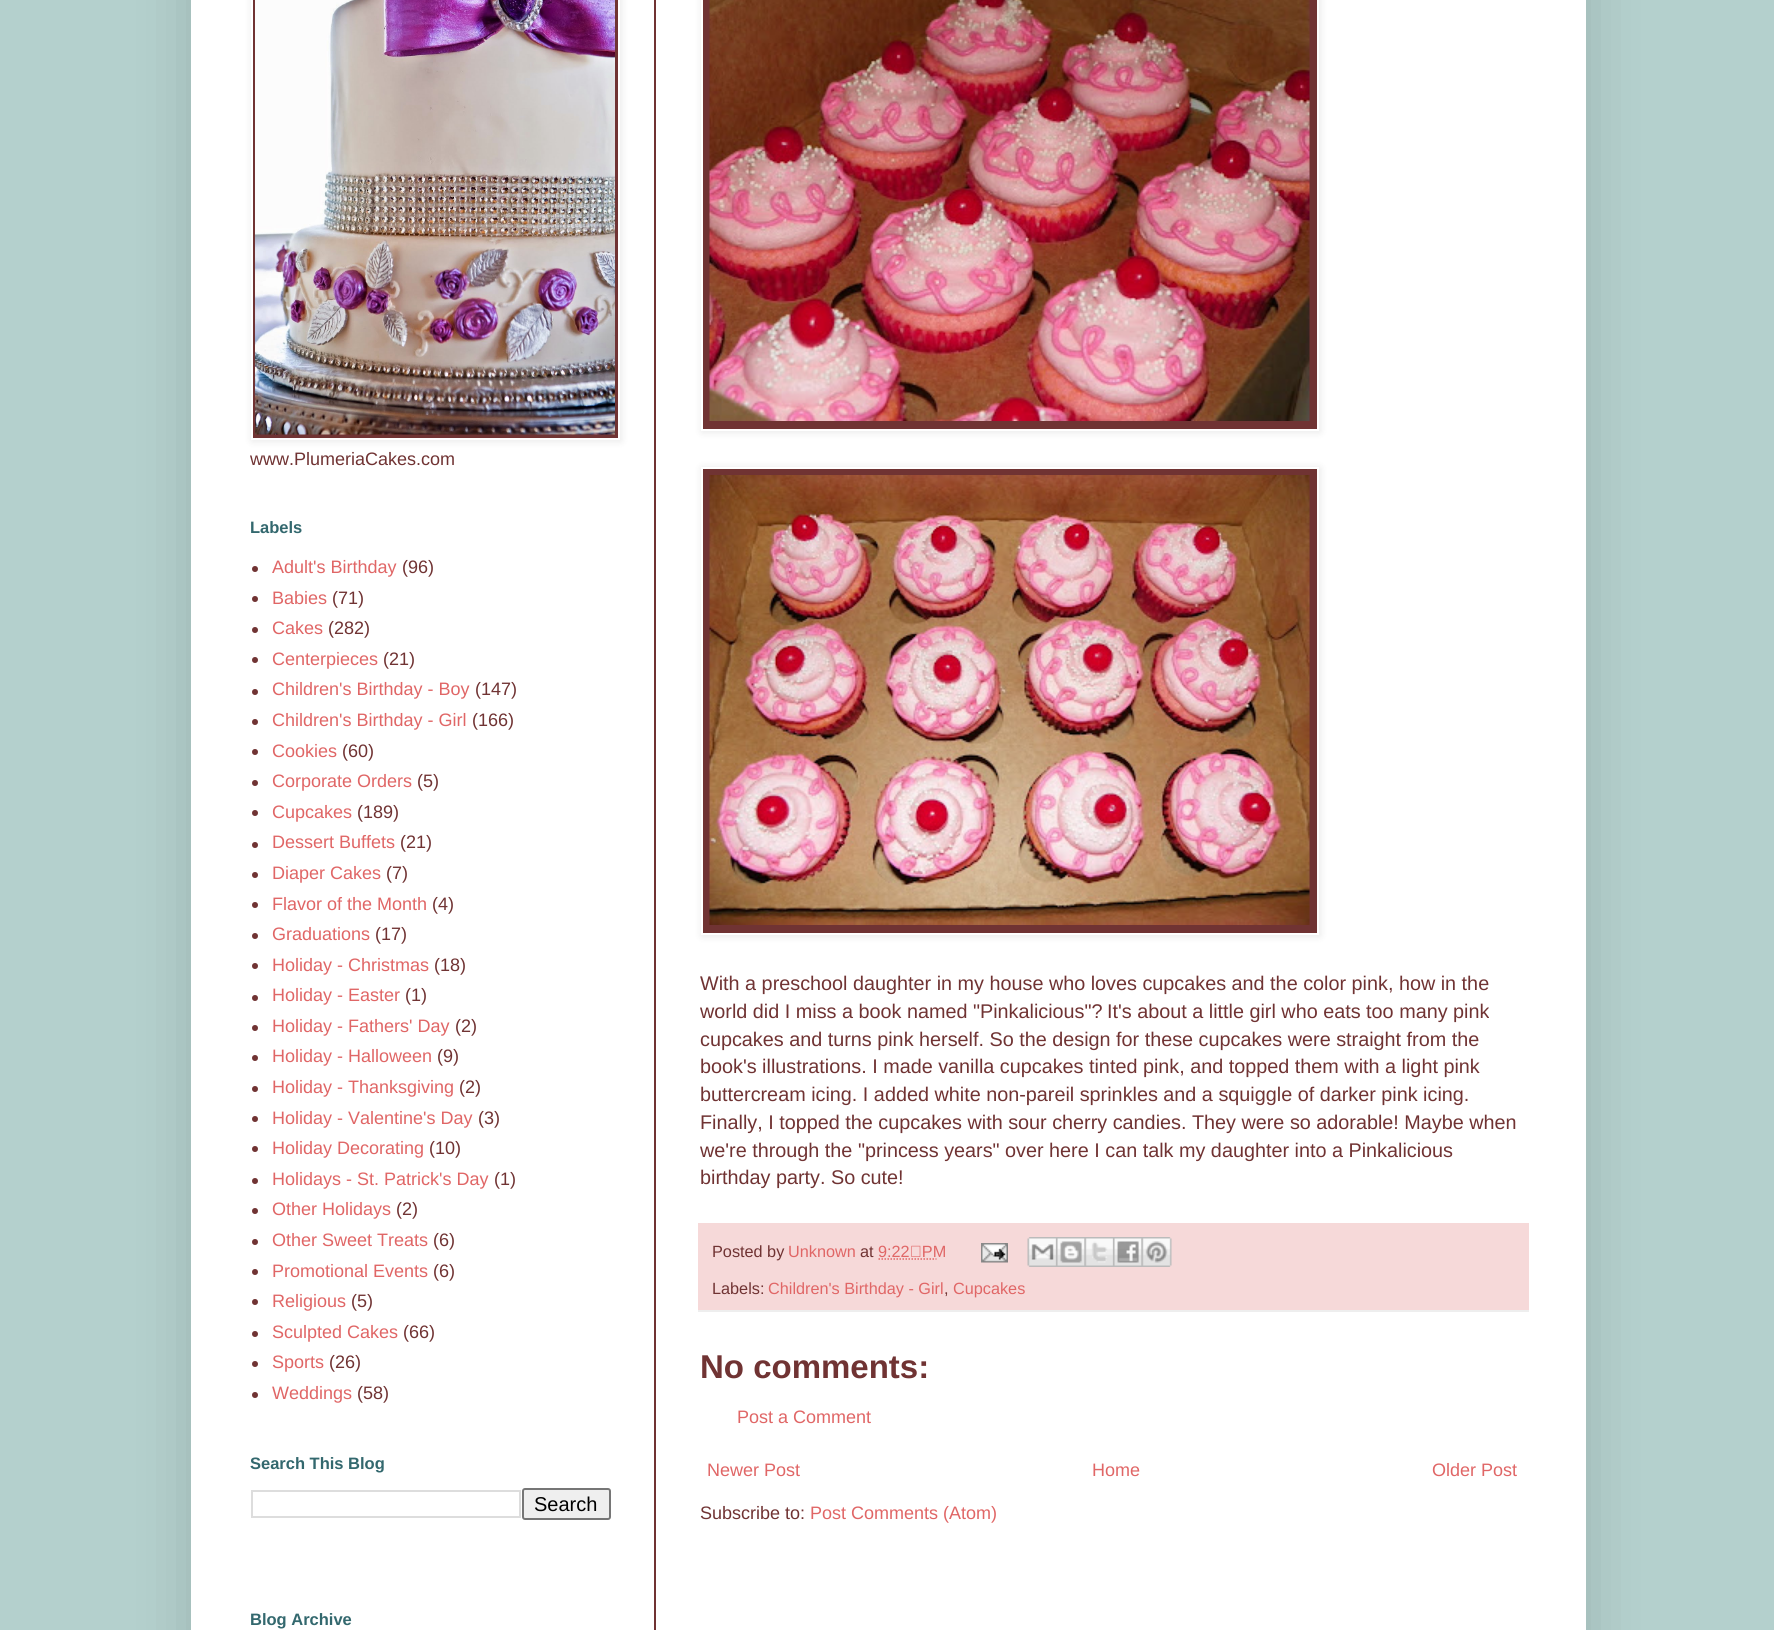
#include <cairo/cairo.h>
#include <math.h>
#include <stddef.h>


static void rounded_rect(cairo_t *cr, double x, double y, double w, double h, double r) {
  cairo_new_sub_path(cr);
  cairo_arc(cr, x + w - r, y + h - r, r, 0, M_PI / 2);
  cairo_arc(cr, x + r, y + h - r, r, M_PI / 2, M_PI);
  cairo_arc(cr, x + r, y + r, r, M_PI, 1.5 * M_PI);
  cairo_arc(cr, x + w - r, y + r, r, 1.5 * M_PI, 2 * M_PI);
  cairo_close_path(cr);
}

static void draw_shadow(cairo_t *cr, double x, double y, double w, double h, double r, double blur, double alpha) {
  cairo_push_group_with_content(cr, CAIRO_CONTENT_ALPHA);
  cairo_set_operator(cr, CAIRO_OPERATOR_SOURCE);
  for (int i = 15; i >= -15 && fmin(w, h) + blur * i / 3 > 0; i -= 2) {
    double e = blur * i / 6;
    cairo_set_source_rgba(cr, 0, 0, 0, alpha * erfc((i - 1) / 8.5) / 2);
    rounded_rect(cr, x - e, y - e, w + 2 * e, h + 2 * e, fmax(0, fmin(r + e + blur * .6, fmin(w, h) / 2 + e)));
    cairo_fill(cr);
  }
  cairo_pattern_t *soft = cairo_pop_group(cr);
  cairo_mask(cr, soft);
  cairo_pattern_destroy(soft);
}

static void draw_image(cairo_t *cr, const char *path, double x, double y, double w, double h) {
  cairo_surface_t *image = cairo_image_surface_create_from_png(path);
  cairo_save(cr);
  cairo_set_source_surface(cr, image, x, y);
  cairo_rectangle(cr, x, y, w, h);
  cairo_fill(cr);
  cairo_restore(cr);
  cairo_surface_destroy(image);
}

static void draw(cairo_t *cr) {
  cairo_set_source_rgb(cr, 180 / 255.0, 208 / 255.0, 205 / 255.0);
  cairo_paint(cr);
  cairo_set_source_rgb(cr, 0, 0, 0);
  draw_shadow(cr, 191, -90, 1395, 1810, 0, 30, 0.15);
  cairo_set_source_rgb(cr, 1, 1, 1);
  cairo_rectangle(cr, 191, 0, 1395, 1630);
  cairo_fill(cr);
  cairo_set_source_rgb(cr, 112 / 255.0, 51 / 255.0, 51 / 255.0);
  cairo_rectangle(cr, 654, 0, 2, 1630);
  cairo_fill(cr);
  cairo_set_source_rgb(cr, 0, 0, 0);
  draw_shadow(cr, 252, -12, 369, 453, 0, 4, 0.1);
  cairo_set_source_rgb(cr, 112 / 255.0, 51 / 255.0, 51 / 255.0);
  cairo_rectangle(cr, 252, -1, 367, 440);
  cairo_fill_preserve(cr);
  cairo_set_source_rgb(cr, 1, 1, 1);
  cairo_stroke(cr);
  draw_image(cr, "images/1.png", 255, 0, 360, 435);
  cairo_set_source_rgb(cr, 112 / 255.0, 51 / 255.0, 51 / 255.0);
  cairo_arc(cr, 255, 569, 3, 0, 2 * M_PI);
  cairo_fill(cr);
  cairo_arc(cr, 255, 599, 3, 0, 2 * M_PI);
  cairo_fill(cr);
  cairo_arc(cr, 255, 630, 3, 0, 2 * M_PI);
  cairo_fill(cr);
  cairo_arc(cr, 255, 660, 3, 0, 2 * M_PI);
  cairo_fill(cr);
  cairo_arc(cr, 255, 692, 3, 0, 2 * M_PI);
  cairo_fill(cr);
  cairo_arc(cr, 255, 722, 3, 0, 2 * M_PI);
  cairo_fill(cr);
  cairo_arc(cr, 255, 752, 3, 0, 2 * M_PI);
  cairo_fill(cr);
  cairo_arc(cr, 255, 783, 3, 0, 2 * M_PI);
  cairo_fill(cr);
  cairo_arc(cr, 255, 813, 3, 0, 2 * M_PI);
  cairo_fill(cr);
  cairo_arc(cr, 255, 845, 3, 0, 2 * M_PI);
  cairo_fill(cr);
  cairo_arc(cr, 255, 875, 3, 0, 2 * M_PI);
  cairo_fill(cr);
  cairo_arc(cr, 255, 905, 3, 0, 2 * M_PI);
  cairo_fill(cr);
  cairo_arc(cr, 255, 936, 3, 0, 2 * M_PI);
  cairo_fill(cr);
  cairo_arc(cr, 255, 966, 3, 0, 2 * M_PI);
  cairo_fill(cr);
  cairo_arc(cr, 255, 998, 3, 0, 2 * M_PI);
  cairo_fill(cr);
  cairo_arc(cr, 255, 1028, 3, 0, 2 * M_PI);
  cairo_fill(cr);
  cairo_arc(cr, 255, 1058, 3, 0, 2 * M_PI);
  cairo_fill(cr);
  cairo_arc(cr, 255, 1089, 3, 0, 2 * M_PI);
  cairo_fill(cr);
  cairo_arc(cr, 255, 1119, 3, 0, 2 * M_PI);
  cairo_fill(cr);
  cairo_arc(cr, 255, 1149, 3, 0, 2 * M_PI);
  cairo_fill(cr);
  cairo_arc(cr, 255, 1181, 3, 0, 2 * M_PI);
  cairo_fill(cr);
  cairo_arc(cr, 255, 1211, 3, 0, 2 * M_PI);
  cairo_fill(cr);
  cairo_arc(cr, 255, 1242, 3, 0, 2 * M_PI);
  cairo_fill(cr);
  cairo_arc(cr, 255, 1272, 3, 0, 2 * M_PI);
  cairo_fill(cr);
  cairo_arc(cr, 255, 1302, 3, 0, 2 * M_PI);
  cairo_fill(cr);
  cairo_arc(cr, 255, 1334, 3, 0, 2 * M_PI);
  cairo_fill(cr);
  cairo_arc(cr, 255, 1364, 3, 0, 2 * M_PI);
  cairo_fill(cr);
  cairo_arc(cr, 255, 1395, 3, 0, 2 * M_PI);
  cairo_fill(cr);
  cairo_rectangle(cr, 252, 1491, 268, 26);
  cairo_set_source_rgb(cr, 221 / 255.0, 221 / 255.0, 221 / 255.0);
  cairo_stroke(cr);
  cairo_set_source_rgb(cr, 239 / 255.0, 239 / 255.0, 239 / 255.0);
  rounded_rect(cr, 523, 1489, 87, 30, 2);
  cairo_fill_preserve(cr);
  cairo_set_source_rgb(cr, 118 / 255.0, 118 / 255.0, 118 / 255.0);
  cairo_stroke(cr);
  cairo_set_source_rgb(cr, 0, 0, 0);
  draw_shadow(cr, 702, -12, 618, 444, 0, 4, 0.1);
  cairo_set_source_rgb(cr, 112 / 255.0, 51 / 255.0, 51 / 255.0);
  cairo_rectangle(cr, 702, -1, 616, 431);
  cairo_fill_preserve(cr);
  cairo_set_source_rgb(cr, 1, 1, 1);
  cairo_stroke(cr);
  draw_image(cr, "images/2.png", 709, 0, 601, 421);
  cairo_set_source_rgb(cr, 0, 0, 0);
  draw_shadow(cr, 702, 468, 618, 468, 0, 4, 0.1);
  cairo_set_source_rgb(cr, 112 / 255.0, 51 / 255.0, 51 / 255.0);
  cairo_rectangle(cr, 702, 468, 616, 466);
  cairo_fill_preserve(cr);
  cairo_set_source_rgb(cr, 1, 1, 1);
  cairo_stroke(cr);
  draw_image(cr, "images/3.png", 709, 475, 601, 450);
  cairo_set_source_rgb(cr, 246 / 255.0, 217 / 255.0, 217 / 255.0);
  cairo_rectangle(cr, 698, 1223, 831, 87);
  cairo_fill(cr);
  cairo_set_source_rgb(cr, 238 / 255.0, 238 / 255.0, 238 / 255.0);
  cairo_rectangle(cr, 698, 1310, 831, 2);
  cairo_fill(cr);
  cairo_new_path(cr);
  cairo_move_to(cr, 878.5, 1259);
  cairo_line_to(cr, 936.5, 1259);
  cairo_set_source_rgb(cr, 224 / 255.0, 102 / 255.0, 102 / 255.0);
  cairo_set_line_width(cr, 1.5);
  cairo_set_dash(cr, (double[]){1.5, 1.5}, 2, 0);
  cairo_stroke(cr);
  draw_image(cr, "images/4.png", 981, 1243, 27, 20);
  draw_image(cr, "images/5.png", 1027, 1237, 29, 30);
  draw_image(cr, "images/6.png", 1056, 1237, 29, 30);
  draw_image(cr, "images/7.png", 1084, 1237, 29, 30);
  draw_image(cr, "images/8.png", 1113, 1237, 29, 30);
  draw_image(cr, "images/9.png", 1141, 1237, 31, 30);
  cairo_select_font_face(cr, "Arimo", CAIRO_FONT_SLANT_NORMAL, CAIRO_FONT_WEIGHT_NORMAL);
  cairo_set_font_size(cr, 18);
  cairo_set_source_rgb(cr, 112 / 255.0, 51 / 255.0, 51 / 255.0);
  cairo_move_to(cr, 250, 465);
  cairo_show_text(cr, "www.PlumeriaCakes.com");
  cairo_select_font_face(cr, "Arimo", CAIRO_FONT_SLANT_NORMAL, CAIRO_FONT_WEIGHT_BOLD);
  cairo_set_font_size(cr, 16.5);
  cairo_set_source_rgb(cr, 51 / 255.0, 104 / 255.0, 110 / 255.0);
  cairo_move_to(cr, 250, 533);
  cairo_show_text(cr, "Labels");
  cairo_select_font_face(cr, "Arimo", CAIRO_FONT_SLANT_NORMAL, CAIRO_FONT_WEIGHT_NORMAL);
  cairo_set_font_size(cr, 18);
  cairo_set_source_rgb(cr, 224 / 255.0, 102 / 255.0, 102 / 255.0);
  cairo_move_to(cr, 272, 573);
  cairo_show_text(cr, "Adult's Birthday");
  cairo_set_source_rgb(cr, 112 / 255.0, 51 / 255.0, 51 / 255.0);
  cairo_move_to(cr, 402, 573);
  cairo_show_text(cr, "(96)");
  cairo_set_source_rgb(cr, 224 / 255.0, 102 / 255.0, 102 / 255.0);
  cairo_move_to(cr, 272, 604);
  cairo_show_text(cr, "Babies");
  cairo_set_source_rgb(cr, 112 / 255.0, 51 / 255.0, 51 / 255.0);
  cairo_move_to(cr, 332, 604);
  cairo_show_text(cr, "(71)");
  cairo_set_source_rgb(cr, 224 / 255.0, 102 / 255.0, 102 / 255.0);
  cairo_move_to(cr, 272, 634);
  cairo_show_text(cr, "Cakes");
  cairo_set_source_rgb(cr, 112 / 255.0, 51 / 255.0, 51 / 255.0);
  cairo_move_to(cr, 328, 634);
  cairo_show_text(cr, "(282)");
  cairo_set_source_rgb(cr, 224 / 255.0, 102 / 255.0, 102 / 255.0);
  cairo_move_to(cr, 272, 665);
  cairo_show_text(cr, "Centerpieces");
  cairo_set_source_rgb(cr, 112 / 255.0, 51 / 255.0, 51 / 255.0);
  cairo_move_to(cr, 383, 665);
  cairo_show_text(cr, "(21)");
  cairo_set_source_rgb(cr, 224 / 255.0, 102 / 255.0, 102 / 255.0);
  cairo_move_to(cr, 272, 695);
  cairo_show_text(cr, "Children's Birthday - Boy");
  cairo_set_source_rgb(cr, 112 / 255.0, 51 / 255.0, 51 / 255.0);
  cairo_move_to(cr, 475, 695);
  cairo_show_text(cr, "(147)");
  cairo_set_source_rgb(cr, 224 / 255.0, 102 / 255.0, 102 / 255.0);
  cairo_move_to(cr, 272, 726);
  cairo_show_text(cr, "Children's Birthday - Girl");
  cairo_set_source_rgb(cr, 112 / 255.0, 51 / 255.0, 51 / 255.0);
  cairo_move_to(cr, 472, 726);
  cairo_show_text(cr, "(166)");
  cairo_set_source_rgb(cr, 224 / 255.0, 102 / 255.0, 102 / 255.0);
  cairo_move_to(cr, 272, 757);
  cairo_show_text(cr, "Cookies");
  cairo_set_source_rgb(cr, 112 / 255.0, 51 / 255.0, 51 / 255.0);
  cairo_move_to(cr, 342, 757);
  cairo_show_text(cr, "(60)");
  cairo_set_source_rgb(cr, 224 / 255.0, 102 / 255.0, 102 / 255.0);
  cairo_move_to(cr, 272, 787);
  cairo_show_text(cr, "Corporate Orders");
  cairo_set_source_rgb(cr, 112 / 255.0, 51 / 255.0, 51 / 255.0);
  cairo_move_to(cr, 417, 787);
  cairo_show_text(cr, "(5)");
  cairo_set_source_rgb(cr, 224 / 255.0, 102 / 255.0, 102 / 255.0);
  cairo_move_to(cr, 272, 818);
  cairo_show_text(cr, "Cupcakes");
  cairo_set_source_rgb(cr, 112 / 255.0, 51 / 255.0, 51 / 255.0);
  cairo_move_to(cr, 357, 818);
  cairo_show_text(cr, "(189)");
  cairo_set_source_rgb(cr, 224 / 255.0, 102 / 255.0, 102 / 255.0);
  cairo_move_to(cr, 272, 848);
  cairo_show_text(cr, "Dessert Buffets");
  cairo_set_source_rgb(cr, 112 / 255.0, 51 / 255.0, 51 / 255.0);
  cairo_move_to(cr, 400, 848);
  cairo_show_text(cr, "(21)");
  cairo_set_source_rgb(cr, 224 / 255.0, 102 / 255.0, 102 / 255.0);
  cairo_move_to(cr, 272, 879);
  cairo_show_text(cr, "Diaper Cakes");
  cairo_set_source_rgb(cr, 112 / 255.0, 51 / 255.0, 51 / 255.0);
  cairo_move_to(cr, 386, 879);
  cairo_show_text(cr, "(7)");
  cairo_set_source_rgb(cr, 224 / 255.0, 102 / 255.0, 102 / 255.0);
  cairo_move_to(cr, 272, 910);
  cairo_show_text(cr, "Flavor of the Month");
  cairo_set_source_rgb(cr, 112 / 255.0, 51 / 255.0, 51 / 255.0);
  cairo_move_to(cr, 432, 910);
  cairo_show_text(cr, "(4)");
  cairo_set_source_rgb(cr, 224 / 255.0, 102 / 255.0, 102 / 255.0);
  cairo_move_to(cr, 272, 940);
  cairo_show_text(cr, "Graduations");
  cairo_set_source_rgb(cr, 112 / 255.0, 51 / 255.0, 51 / 255.0);
  cairo_move_to(cr, 375, 940);
  cairo_show_text(cr, "(17)");
  cairo_set_source_rgb(cr, 224 / 255.0, 102 / 255.0, 102 / 255.0);
  cairo_move_to(cr, 272, 971);
  cairo_show_text(cr, "Holiday - Christmas");
  cairo_set_source_rgb(cr, 112 / 255.0, 51 / 255.0, 51 / 255.0);
  cairo_move_to(cr, 434, 971);
  cairo_show_text(cr, "(18)");
  cairo_set_source_rgb(cr, 224 / 255.0, 102 / 255.0, 102 / 255.0);
  cairo_move_to(cr, 272, 1001);
  cairo_show_text(cr, "Holiday - Easter");
  cairo_set_source_rgb(cr, 112 / 255.0, 51 / 255.0, 51 / 255.0);
  cairo_move_to(cr, 405, 1001);
  cairo_show_text(cr, "(1)");
  cairo_set_source_rgb(cr, 224 / 255.0, 102 / 255.0, 102 / 255.0);
  cairo_move_to(cr, 272, 1032);
  cairo_show_text(cr, "Holiday - Fathers' Day");
  cairo_set_source_rgb(cr, 112 / 255.0, 51 / 255.0, 51 / 255.0);
  cairo_move_to(cr, 455, 1032);
  cairo_show_text(cr, "(2)");
  cairo_set_source_rgb(cr, 224 / 255.0, 102 / 255.0, 102 / 255.0);
  cairo_move_to(cr, 272, 1062);
  cairo_show_text(cr, "Holiday - Halloween");
  cairo_set_source_rgb(cr, 112 / 255.0, 51 / 255.0, 51 / 255.0);
  cairo_move_to(cr, 437, 1062);
  cairo_show_text(cr, "(9)");
  cairo_set_source_rgb(cr, 224 / 255.0, 102 / 255.0, 102 / 255.0);
  cairo_move_to(cr, 272, 1093);
  cairo_show_text(cr, "Holiday - Thanksgiving");
  cairo_set_source_rgb(cr, 112 / 255.0, 51 / 255.0, 51 / 255.0);
  cairo_move_to(cr, 459, 1093);
  cairo_show_text(cr, "(2)");
  cairo_set_source_rgb(cr, 224 / 255.0, 102 / 255.0, 102 / 255.0);
  cairo_move_to(cr, 272, 1124);
  cairo_show_text(cr, "Holiday - Valentine's Day");
  cairo_set_source_rgb(cr, 112 / 255.0, 51 / 255.0, 51 / 255.0);
  cairo_move_to(cr, 478, 1124);
  cairo_show_text(cr, "(3)");
  cairo_set_source_rgb(cr, 224 / 255.0, 102 / 255.0, 102 / 255.0);
  cairo_move_to(cr, 272, 1154);
  cairo_show_text(cr, "Holiday Decorating");
  cairo_set_source_rgb(cr, 112 / 255.0, 51 / 255.0, 51 / 255.0);
  cairo_move_to(cr, 429, 1154);
  cairo_show_text(cr, "(10)");
  cairo_set_source_rgb(cr, 224 / 255.0, 102 / 255.0, 102 / 255.0);
  cairo_move_to(cr, 272, 1185);
  cairo_show_text(cr, "Holidays - St. Patrick's Day");
  cairo_set_source_rgb(cr, 112 / 255.0, 51 / 255.0, 51 / 255.0);
  cairo_move_to(cr, 494, 1185);
  cairo_show_text(cr, "(1)");
  cairo_set_source_rgb(cr, 224 / 255.0, 102 / 255.0, 102 / 255.0);
  cairo_move_to(cr, 272, 1215);
  cairo_show_text(cr, "Other Holidays");
  cairo_set_source_rgb(cr, 112 / 255.0, 51 / 255.0, 51 / 255.0);
  cairo_move_to(cr, 396, 1215);
  cairo_show_text(cr, "(2)");
  cairo_set_source_rgb(cr, 224 / 255.0, 102 / 255.0, 102 / 255.0);
  cairo_move_to(cr, 272, 1246);
  cairo_show_text(cr, "Other Sweet Treats");
  cairo_set_source_rgb(cr, 112 / 255.0, 51 / 255.0, 51 / 255.0);
  cairo_move_to(cr, 433, 1246);
  cairo_show_text(cr, "(6)");
  cairo_set_source_rgb(cr, 224 / 255.0, 102 / 255.0, 102 / 255.0);
  cairo_move_to(cr, 272, 1277);
  cairo_show_text(cr, "Promotional Events");
  cairo_set_source_rgb(cr, 112 / 255.0, 51 / 255.0, 51 / 255.0);
  cairo_move_to(cr, 433, 1277);
  cairo_show_text(cr, "(6)");
  cairo_set_source_rgb(cr, 224 / 255.0, 102 / 255.0, 102 / 255.0);
  cairo_move_to(cr, 272, 1307);
  cairo_show_text(cr, "Religious");
  cairo_set_source_rgb(cr, 112 / 255.0, 51 / 255.0, 51 / 255.0);
  cairo_move_to(cr, 351, 1307);
  cairo_show_text(cr, "(5)");
  cairo_set_source_rgb(cr, 224 / 255.0, 102 / 255.0, 102 / 255.0);
  cairo_move_to(cr, 272, 1338);
  cairo_show_text(cr, "Sculpted Cakes");
  cairo_set_source_rgb(cr, 112 / 255.0, 51 / 255.0, 51 / 255.0);
  cairo_move_to(cr, 403, 1338);
  cairo_show_text(cr, "(66)");
  cairo_set_source_rgb(cr, 224 / 255.0, 102 / 255.0, 102 / 255.0);
  cairo_move_to(cr, 272, 1368);
  cairo_show_text(cr, "Sports");
  cairo_set_source_rgb(cr, 112 / 255.0, 51 / 255.0, 51 / 255.0);
  cairo_move_to(cr, 329, 1368);
  cairo_show_text(cr, "(26)");
  cairo_set_source_rgb(cr, 224 / 255.0, 102 / 255.0, 102 / 255.0);
  cairo_move_to(cr, 272, 1399);
  cairo_show_text(cr, "Weddings");
  cairo_set_source_rgb(cr, 112 / 255.0, 51 / 255.0, 51 / 255.0);
  cairo_move_to(cr, 357, 1399);
  cairo_show_text(cr, "(58)");
  cairo_select_font_face(cr, "Arimo", CAIRO_FONT_SLANT_NORMAL, CAIRO_FONT_WEIGHT_BOLD);
  cairo_set_font_size(cr, 16.5);
  cairo_set_source_rgb(cr, 51 / 255.0, 104 / 255.0, 110 / 255.0);
  cairo_move_to(cr, 250, 1469);
  cairo_show_text(cr, "Search This Blog");
  cairo_select_font_face(cr, "Liberation Sans", CAIRO_FONT_SLANT_NORMAL, CAIRO_FONT_WEIGHT_NORMAL);
  cairo_set_font_size(cr, 20);
  cairo_set_source_rgb(cr, 0, 0, 0);
  cairo_move_to(cr, 534, 1511);
  cairo_show_text(cr, "Search");
  cairo_select_font_face(cr, "Arimo", CAIRO_FONT_SLANT_NORMAL, CAIRO_FONT_WEIGHT_BOLD);
  cairo_set_font_size(cr, 16.5);
  cairo_set_source_rgb(cr, 51 / 255.0, 104 / 255.0, 110 / 255.0);
  cairo_move_to(cr, 250, 1625);
  cairo_show_text(cr, "Blog Archive");
  cairo_select_font_face(cr, "Arimo", CAIRO_FONT_SLANT_NORMAL, CAIRO_FONT_WEIGHT_NORMAL);
  cairo_set_font_size(cr, 19.8);
  cairo_set_source_rgb(cr, 112 / 255.0, 51 / 255.0, 51 / 255.0);
  cairo_move_to(cr, 700, 990);
  cairo_show_text(cr, "With a preschool daughter in my house who loves cupcakes and the color pink, how in the");
  cairo_move_to(cr, 700, 1018);
  cairo_show_text(cr, "world did I miss a book named \"Pinkalicious\"?");
  cairo_move_to(cr, 1107, 1018);
  cairo_show_text(cr, "It's about a little girl who eats too many pink");
  cairo_move_to(cr, 700, 1046);
  cairo_show_text(cr, "cupcakes and turns pink herself. So the design for these cupcakes were straight from the");
  cairo_move_to(cr, 700, 1073);
  cairo_show_text(cr, "book's illustrations. I made vanilla cupcakes tinted pink, and topped them with a light pink");
  cairo_move_to(cr, 700, 1101);
  cairo_show_text(cr, "buttercream icing. I added white non-pareil sprinkles and a squiggle of darker pink icing.");
  cairo_move_to(cr, 700, 1129);
  cairo_show_text(cr, "Finally, I topped the cupcakes with sour cherry candies. They were so adorable! Maybe when");
  cairo_move_to(cr, 700, 1157);
  cairo_show_text(cr, "we're through the \"princess years\" over here I can talk my daughter into a Pinkalicious");
  cairo_move_to(cr, 700, 1184);
  cairo_show_text(cr, "birthday party. So cute!");
  cairo_set_font_size(cr, 16.25);
  cairo_move_to(cr, 712, 1257);
  cairo_show_text(cr, "Posted by");
  cairo_set_source_rgb(cr, 224 / 255.0, 102 / 255.0, 102 / 255.0);
  cairo_move_to(cr, 788, 1257);
  cairo_show_text(cr, "Unknown");
  cairo_set_source_rgb(cr, 112 / 255.0, 51 / 255.0, 51 / 255.0);
  cairo_move_to(cr, 860, 1257);
  cairo_show_text(cr, "at");
  cairo_set_source_rgb(cr, 224 / 255.0, 102 / 255.0, 102 / 255.0);
  cairo_move_to(cr, 878, 1257);
  cairo_show_text(cr, "9:22 PM");
  cairo_set_source_rgb(cr, 112 / 255.0, 51 / 255.0, 51 / 255.0);
  cairo_move_to(cr, 712, 1294);
  cairo_show_text(cr, "Labels:");
  cairo_set_source_rgb(cr, 224 / 255.0, 102 / 255.0, 102 / 255.0);
  cairo_move_to(cr, 768, 1294);
  cairo_show_text(cr, "Children's Birthday - Girl");
  cairo_set_source_rgb(cr, 112 / 255.0, 51 / 255.0, 51 / 255.0);
  cairo_move_to(cr, 944, 1294);
  cairo_show_text(cr, ",");
  cairo_set_source_rgb(cr, 224 / 255.0, 102 / 255.0, 102 / 255.0);
  cairo_move_to(cr, 953, 1294);
  cairo_show_text(cr, "Cupcakes");
  cairo_select_font_face(cr, "Arimo", CAIRO_FONT_SLANT_NORMAL, CAIRO_FONT_WEIGHT_BOLD);
  cairo_set_font_size(cr, 33);
  cairo_set_source_rgb(cr, 112 / 255.0, 51 / 255.0, 51 / 255.0);
  cairo_move_to(cr, 700, 1378);
  cairo_show_text(cr, "No comments:");
  cairo_select_font_face(cr, "Arimo", CAIRO_FONT_SLANT_NORMAL, CAIRO_FONT_WEIGHT_NORMAL);
  cairo_set_font_size(cr, 18);
  cairo_set_source_rgb(cr, 224 / 255.0, 102 / 255.0, 102 / 255.0);
  cairo_move_to(cr, 737, 1423);
  cairo_show_text(cr, "Post a Comment");
  cairo_move_to(cr, 707, 1476);
  cairo_show_text(cr, "Newer Post");
  cairo_move_to(cr, 1092, 1476);
  cairo_show_text(cr, "Home");
  cairo_move_to(cr, 1432, 1476);
  cairo_show_text(cr, "Older Post");
  cairo_set_source_rgb(cr, 112 / 255.0, 51 / 255.0, 51 / 255.0);
  cairo_move_to(cr, 700, 1519);
  cairo_show_text(cr, "Subscribe to:");
  cairo_set_source_rgb(cr, 224 / 255.0, 102 / 255.0, 102 / 255.0);
  cairo_move_to(cr, 810, 1519);
  cairo_show_text(cr, "Post Comments (Atom)");
}

int main(void) {
  cairo_surface_t *surface = cairo_image_surface_create(CAIRO_FORMAT_RGB24, 1774, 1630);
  cairo_t *cr = cairo_create(surface);
  cairo_font_options_t *options = cairo_font_options_create();
  cairo_font_options_set_hint_metrics(options, CAIRO_HINT_METRICS_OFF);
  cairo_font_options_set_hint_style(options, CAIRO_HINT_STYLE_NONE);
  cairo_set_font_options(cr, options);
  cairo_set_miter_limit(cr, 4);
  draw(cr);
  cairo_surface_write_to_png(surface, "out.png");
  cairo_font_options_destroy(options);
  cairo_destroy(cr);
  cairo_surface_destroy(surface);
  return 0;
}
